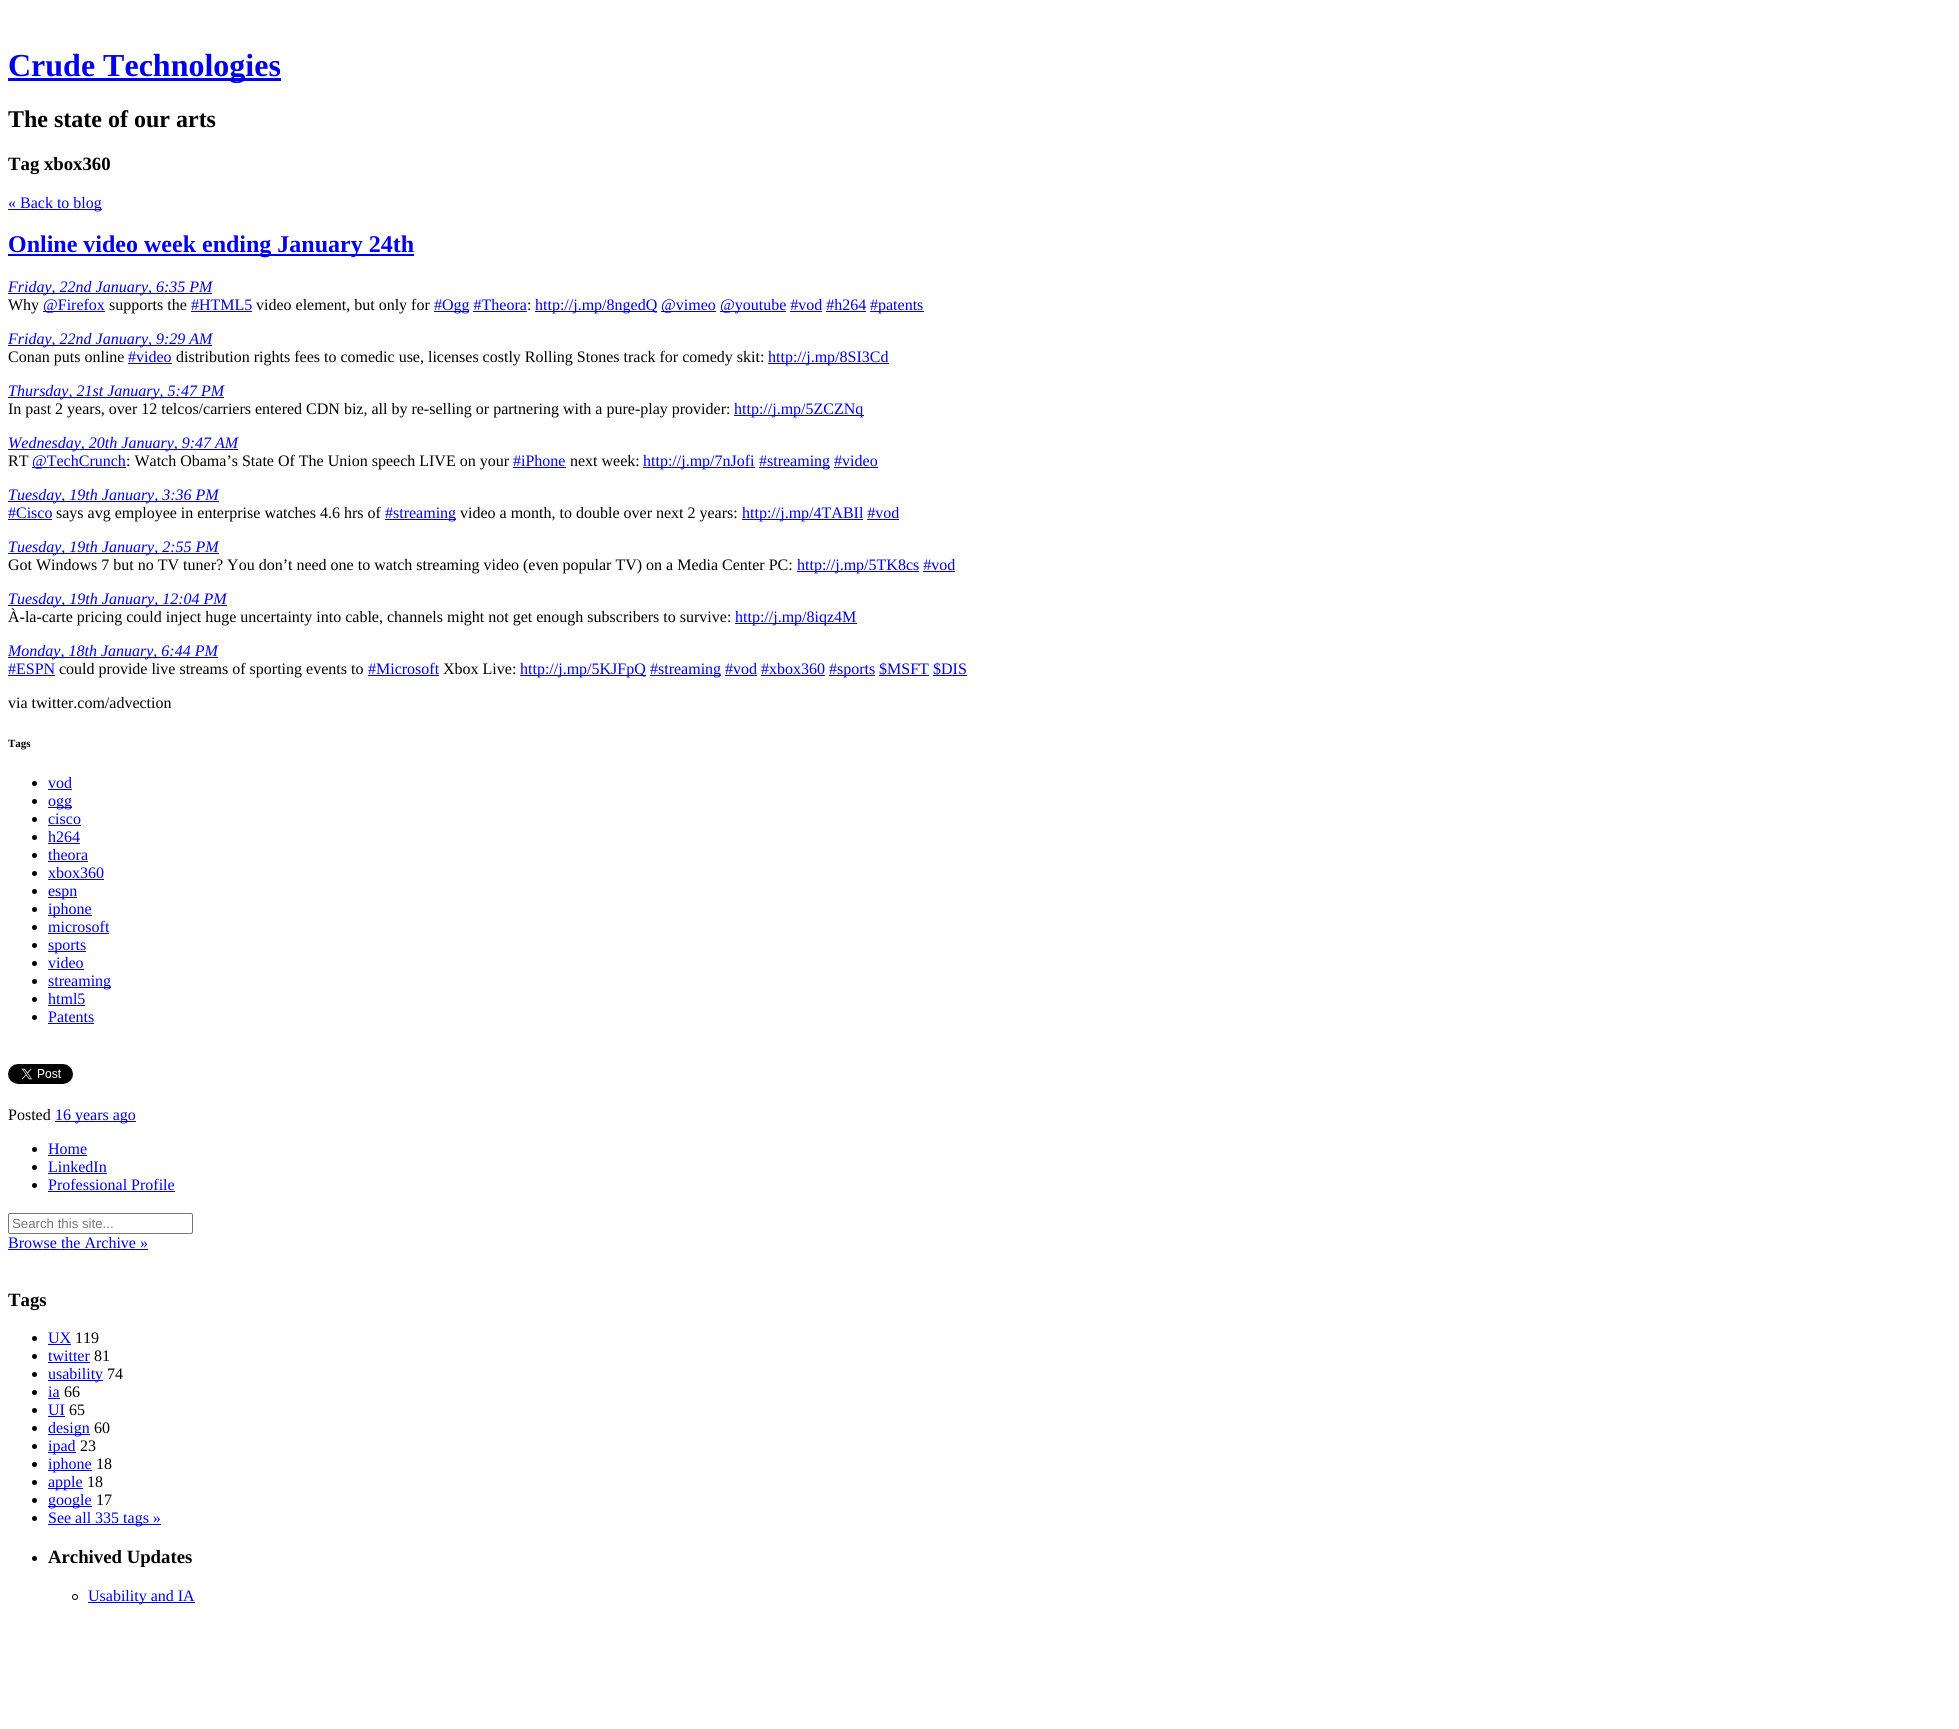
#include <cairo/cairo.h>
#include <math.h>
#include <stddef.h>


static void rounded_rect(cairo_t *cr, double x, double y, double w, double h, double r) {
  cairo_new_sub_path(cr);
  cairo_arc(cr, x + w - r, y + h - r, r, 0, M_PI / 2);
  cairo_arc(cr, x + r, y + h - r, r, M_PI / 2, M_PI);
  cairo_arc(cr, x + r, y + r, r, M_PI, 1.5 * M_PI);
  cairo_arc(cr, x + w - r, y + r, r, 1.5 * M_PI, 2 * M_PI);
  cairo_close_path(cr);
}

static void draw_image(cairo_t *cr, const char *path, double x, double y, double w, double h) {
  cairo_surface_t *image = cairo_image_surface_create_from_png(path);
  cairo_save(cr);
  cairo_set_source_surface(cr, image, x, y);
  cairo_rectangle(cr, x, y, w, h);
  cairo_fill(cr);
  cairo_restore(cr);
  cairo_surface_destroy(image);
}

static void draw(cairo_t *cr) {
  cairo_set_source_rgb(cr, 1, 1, 1);
  cairo_paint(cr);
  cairo_set_source_rgb(cr, 0, 0, 238 / 255.0);
  cairo_rectangle(cr, 8, 78, 273, 3);
  cairo_fill(cr);
  cairo_rectangle(cr, 8, 209, 94, 1);
  cairo_fill(cr);
  cairo_rectangle(cr, 8, 254, 406, 2);
  cairo_fill(cr);
  cairo_rectangle(cr, 8, 293, 204, 1);
  cairo_fill(cr);
  cairo_rectangle(cr, 43, 311, 62, 1);
  cairo_fill(cr);
  cairo_rectangle(cr, 191, 311, 61, 1);
  cairo_fill(cr);
  cairo_rectangle(cr, 434, 311, 35, 1);
  cairo_fill(cr);
  cairo_rectangle(cr, 535, 311, 122, 1);
  cairo_fill(cr);
  cairo_rectangle(cr, 661, 311, 55, 1);
  cairo_fill(cr);
  cairo_rectangle(cr, 720, 311, 66, 1);
  cairo_fill(cr);
  cairo_rectangle(cr, 870, 311, 54, 1);
  cairo_fill(cr);
  cairo_rectangle(cr, 473, 311, 54, 1);
  cairo_fill(cr);
  cairo_rectangle(cr, 790, 311, 32, 1);
  cairo_fill(cr);
  cairo_rectangle(cr, 826, 311, 40, 1);
  cairo_fill(cr);
  cairo_rectangle(cr, 8, 345, 204, 1);
  cairo_fill(cr);
  cairo_rectangle(cr, 128, 363, 44, 1);
  cairo_fill(cr);
  cairo_rectangle(cr, 768, 363, 121, 1);
  cairo_fill(cr);
  cairo_rectangle(cr, 8, 397, 216, 1);
  cairo_fill(cr);
  cairo_rectangle(cr, 734, 415, 130, 1);
  cairo_fill(cr);
  cairo_rectangle(cr, 8, 449, 230, 1);
  cairo_fill(cr);
  cairo_rectangle(cr, 32, 467, 94, 1);
  cairo_fill(cr);
  cairo_rectangle(cr, 513, 467, 53, 1);
  cairo_fill(cr);
  cairo_rectangle(cr, 643, 467, 112, 1);
  cairo_fill(cr);
  cairo_rectangle(cr, 759, 467, 71, 1);
  cairo_fill(cr);
  cairo_rectangle(cr, 834, 467, 44, 1);
  cairo_fill(cr);
  cairo_rectangle(cr, 8, 501, 211, 1);
  cairo_fill(cr);
  cairo_rectangle(cr, 8, 519, 44, 1);
  cairo_fill(cr);
  cairo_rectangle(cr, 385, 519, 71, 1);
  cairo_fill(cr);
  cairo_rectangle(cr, 742, 519, 121, 1);
  cairo_fill(cr);
  cairo_rectangle(cr, 867, 519, 32, 1);
  cairo_fill(cr);
  cairo_rectangle(cr, 8, 553, 211, 1);
  cairo_fill(cr);
  cairo_rectangle(cr, 797, 571, 122, 1);
  cairo_fill(cr);
  cairo_rectangle(cr, 923, 571, 32, 1);
  cairo_fill(cr);
  cairo_rectangle(cr, 8, 605, 219, 1);
  cairo_fill(cr);
  cairo_rectangle(cr, 735, 623, 122, 1);
  cairo_fill(cr);
  cairo_rectangle(cr, 8, 657, 210, 1);
  cairo_fill(cr);
  cairo_rectangle(cr, 8, 675, 47, 1);
  cairo_fill(cr);
  cairo_rectangle(cr, 368, 675, 71, 1);
  cairo_fill(cr);
  cairo_rectangle(cr, 520, 675, 126, 1);
  cairo_fill(cr);
  cairo_rectangle(cr, 650, 675, 71, 1);
  cairo_fill(cr);
  cairo_rectangle(cr, 829, 675, 46, 1);
  cairo_fill(cr);
  cairo_rectangle(cr, 879, 675, 50, 1);
  cairo_fill(cr);
  cairo_rectangle(cr, 933, 675, 34, 1);
  cairo_fill(cr);
  cairo_rectangle(cr, 725, 675, 32, 1);
  cairo_fill(cr);
  cairo_rectangle(cr, 761, 675, 64, 1);
  cairo_fill(cr);
  cairo_set_source_rgb(cr, 0, 0, 0);
  cairo_arc(cr, 34.5, 783.5, 2.5, 0, 2 * M_PI);
  cairo_fill(cr);
  cairo_set_source_rgb(cr, 0, 0, 238 / 255.0);
  cairo_rectangle(cr, 48, 789, 24, 1);
  cairo_fill(cr);
  cairo_set_source_rgb(cr, 0, 0, 0);
  cairo_arc(cr, 34.5, 801.5, 2.5, 0, 2 * M_PI);
  cairo_fill(cr);
  cairo_set_source_rgb(cr, 0, 0, 238 / 255.0);
  cairo_rectangle(cr, 48, 807, 24, 1);
  cairo_fill(cr);
  cairo_set_source_rgb(cr, 0, 0, 0);
  cairo_arc(cr, 34.5, 819.5, 2.5, 0, 2 * M_PI);
  cairo_fill(cr);
  cairo_set_source_rgb(cr, 0, 0, 238 / 255.0);
  cairo_rectangle(cr, 48, 825, 33, 1);
  cairo_fill(cr);
  cairo_set_source_rgb(cr, 0, 0, 0);
  cairo_arc(cr, 34.5, 837.5, 2.5, 0, 2 * M_PI);
  cairo_fill(cr);
  cairo_set_source_rgb(cr, 0, 0, 238 / 255.0);
  cairo_rectangle(cr, 48, 843, 32, 1);
  cairo_fill(cr);
  cairo_set_source_rgb(cr, 0, 0, 0);
  cairo_arc(cr, 34.5, 855.5, 2.5, 0, 2 * M_PI);
  cairo_fill(cr);
  cairo_set_source_rgb(cr, 0, 0, 238 / 255.0);
  cairo_rectangle(cr, 48, 861, 40, 1);
  cairo_fill(cr);
  cairo_set_source_rgb(cr, 0, 0, 0);
  cairo_arc(cr, 34.5, 873.5, 2.5, 0, 2 * M_PI);
  cairo_fill(cr);
  cairo_set_source_rgb(cr, 0, 0, 238 / 255.0);
  cairo_rectangle(cr, 48, 879, 56, 1);
  cairo_fill(cr);
  cairo_set_source_rgb(cr, 0, 0, 0);
  cairo_arc(cr, 34.5, 891.5, 2.5, 0, 2 * M_PI);
  cairo_fill(cr);
  cairo_set_source_rgb(cr, 0, 0, 238 / 255.0);
  cairo_rectangle(cr, 48, 897, 29, 1);
  cairo_fill(cr);
  cairo_set_source_rgb(cr, 0, 0, 0);
  cairo_arc(cr, 34.5, 909.5, 2.5, 0, 2 * M_PI);
  cairo_fill(cr);
  cairo_set_source_rgb(cr, 0, 0, 238 / 255.0);
  cairo_rectangle(cr, 48, 915, 44, 1);
  cairo_fill(cr);
  cairo_set_source_rgb(cr, 0, 0, 0);
  cairo_arc(cr, 34.5, 927.5, 2.5, 0, 2 * M_PI);
  cairo_fill(cr);
  cairo_set_source_rgb(cr, 0, 0, 238 / 255.0);
  cairo_rectangle(cr, 48, 933, 61, 1);
  cairo_fill(cr);
  cairo_set_source_rgb(cr, 0, 0, 0);
  cairo_arc(cr, 34.5, 945.5, 2.5, 0, 2 * M_PI);
  cairo_fill(cr);
  cairo_set_source_rgb(cr, 0, 0, 238 / 255.0);
  cairo_rectangle(cr, 48, 951, 38, 1);
  cairo_fill(cr);
  cairo_set_source_rgb(cr, 0, 0, 0);
  cairo_arc(cr, 34.5, 963.5, 2.5, 0, 2 * M_PI);
  cairo_fill(cr);
  cairo_set_source_rgb(cr, 0, 0, 238 / 255.0);
  cairo_rectangle(cr, 48, 969, 36, 1);
  cairo_fill(cr);
  cairo_set_source_rgb(cr, 0, 0, 0);
  cairo_arc(cr, 34.5, 981.5, 2.5, 0, 2 * M_PI);
  cairo_fill(cr);
  cairo_set_source_rgb(cr, 0, 0, 238 / 255.0);
  cairo_rectangle(cr, 48, 987, 63, 1);
  cairo_fill(cr);
  cairo_set_source_rgb(cr, 0, 0, 0);
  cairo_arc(cr, 34.5, 999.5, 2.5, 0, 2 * M_PI);
  cairo_fill(cr);
  cairo_set_source_rgb(cr, 0, 0, 238 / 255.0);
  cairo_rectangle(cr, 48, 1005, 37, 1);
  cairo_fill(cr);
  cairo_set_source_rgb(cr, 0, 0, 0);
  cairo_arc(cr, 34.5, 1017.5, 2.5, 0, 2 * M_PI);
  cairo_fill(cr);
  cairo_set_source_rgb(cr, 0, 0, 238 / 255.0);
  cairo_rectangle(cr, 48, 1023, 46, 1);
  cairo_fill(cr);
  draw_image(cr, "images/1.png", 8, 1064, 65, 20);
  cairo_rectangle(cr, 55, 1121, 81, 1);
  cairo_fill(cr);
  cairo_set_source_rgb(cr, 0, 0, 0);
  cairo_arc(cr, 34.5, 1149.5, 2.5, 0, 2 * M_PI);
  cairo_fill(cr);
  cairo_set_source_rgb(cr, 0, 0, 238 / 255.0);
  cairo_rectangle(cr, 48, 1155, 39, 1);
  cairo_fill(cr);
  cairo_set_source_rgb(cr, 0, 0, 0);
  cairo_arc(cr, 34.5, 1167.5, 2.5, 0, 2 * M_PI);
  cairo_fill(cr);
  cairo_set_source_rgb(cr, 0, 0, 238 / 255.0);
  cairo_rectangle(cr, 48, 1173, 59, 1);
  cairo_fill(cr);
  cairo_set_source_rgb(cr, 0, 0, 0);
  cairo_arc(cr, 34.5, 1185.5, 2.5, 0, 2 * M_PI);
  cairo_fill(cr);
  cairo_set_source_rgb(cr, 0, 0, 238 / 255.0);
  cairo_rectangle(cr, 48, 1191, 127, 1);
  cairo_fill(cr);
  rounded_rect(cr, 8.5, 1213.5, 184, 20, 1.5);
  cairo_set_source_rgb(cr, 118 / 255.0, 118 / 255.0, 118 / 255.0);
  cairo_set_line_width(cr, 1);
  cairo_stroke(cr);
  cairo_set_source_rgb(cr, 0, 0, 238 / 255.0);
  cairo_rectangle(cr, 8, 1249, 140, 1);
  cairo_fill(cr);
  cairo_set_source_rgb(cr, 0, 0, 0);
  cairo_arc(cr, 34.5, 1338.5, 2.5, 0, 2 * M_PI);
  cairo_fill(cr);
  cairo_set_source_rgb(cr, 0, 0, 238 / 255.0);
  cairo_rectangle(cr, 48, 1344, 23, 1);
  cairo_fill(cr);
  cairo_set_source_rgb(cr, 0, 0, 0);
  cairo_arc(cr, 34.5, 1356.5, 2.5, 0, 2 * M_PI);
  cairo_fill(cr);
  cairo_set_source_rgb(cr, 0, 0, 238 / 255.0);
  cairo_rectangle(cr, 48, 1362, 42, 1);
  cairo_fill(cr);
  cairo_set_source_rgb(cr, 0, 0, 0);
  cairo_arc(cr, 34.5, 1374.5, 2.5, 0, 2 * M_PI);
  cairo_fill(cr);
  cairo_set_source_rgb(cr, 0, 0, 238 / 255.0);
  cairo_rectangle(cr, 48, 1380, 55, 1);
  cairo_fill(cr);
  cairo_set_source_rgb(cr, 0, 0, 0);
  cairo_arc(cr, 34.5, 1392.5, 2.5, 0, 2 * M_PI);
  cairo_fill(cr);
  cairo_set_source_rgb(cr, 0, 0, 238 / 255.0);
  cairo_rectangle(cr, 48, 1398, 12, 1);
  cairo_fill(cr);
  cairo_set_source_rgb(cr, 0, 0, 0);
  cairo_arc(cr, 34.5, 1410.5, 2.5, 0, 2 * M_PI);
  cairo_fill(cr);
  cairo_set_source_rgb(cr, 0, 0, 238 / 255.0);
  cairo_rectangle(cr, 48, 1416, 17, 1);
  cairo_fill(cr);
  cairo_set_source_rgb(cr, 0, 0, 0);
  cairo_arc(cr, 34.5, 1428.5, 2.5, 0, 2 * M_PI);
  cairo_fill(cr);
  cairo_set_source_rgb(cr, 0, 0, 238 / 255.0);
  cairo_rectangle(cr, 48, 1434, 42, 1);
  cairo_fill(cr);
  cairo_set_source_rgb(cr, 0, 0, 0);
  cairo_arc(cr, 34.5, 1446.5, 2.5, 0, 2 * M_PI);
  cairo_fill(cr);
  cairo_set_source_rgb(cr, 0, 0, 238 / 255.0);
  cairo_rectangle(cr, 48, 1452, 28, 1);
  cairo_fill(cr);
  cairo_set_source_rgb(cr, 0, 0, 0);
  cairo_arc(cr, 34.5, 1464.5, 2.5, 0, 2 * M_PI);
  cairo_fill(cr);
  cairo_set_source_rgb(cr, 0, 0, 238 / 255.0);
  cairo_rectangle(cr, 48, 1470, 44, 1);
  cairo_fill(cr);
  cairo_set_source_rgb(cr, 0, 0, 0);
  cairo_arc(cr, 34.5, 1482.5, 2.5, 0, 2 * M_PI);
  cairo_fill(cr);
  cairo_set_source_rgb(cr, 0, 0, 238 / 255.0);
  cairo_rectangle(cr, 48, 1488, 35, 1);
  cairo_fill(cr);
  cairo_set_source_rgb(cr, 0, 0, 0);
  cairo_arc(cr, 34.5, 1500.5, 2.5, 0, 2 * M_PI);
  cairo_fill(cr);
  cairo_set_source_rgb(cr, 0, 0, 238 / 255.0);
  cairo_rectangle(cr, 48, 1506, 44, 1);
  cairo_fill(cr);
  cairo_set_source_rgb(cr, 0, 0, 0);
  cairo_arc(cr, 34.5, 1518.5, 2.5, 0, 2 * M_PI);
  cairo_fill(cr);
  cairo_set_source_rgb(cr, 0, 0, 238 / 255.0);
  cairo_rectangle(cr, 48, 1524, 113, 1);
  cairo_fill(cr);
  cairo_set_source_rgb(cr, 0, 0, 0);
  cairo_arc(cr, 34.5, 1558.5, 2.5, 0, 2 * M_PI);
  cairo_fill(cr);
  cairo_arc(cr, 75, 1597, 2.5, 0, 2 * M_PI);
  cairo_stroke(cr);
  cairo_set_source_rgb(cr, 0, 0, 238 / 255.0);
  cairo_rectangle(cr, 88, 1602, 107, 1);
  cairo_fill(cr);
  cairo_select_font_face(cr, "Liberation Serif", CAIRO_FONT_SLANT_NORMAL, CAIRO_FONT_WEIGHT_BOLD);
  cairo_set_font_size(cr, 32);
  cairo_move_to(cr, 8, 76);
  cairo_show_text(cr, "Crude Technologies");
  cairo_set_font_size(cr, 24);
  cairo_set_source_rgb(cr, 0, 0, 0);
  cairo_move_to(cr, 8, 127);
  cairo_show_text(cr, "The state of our arts");
  cairo_set_font_size(cr, 18.75);
  cairo_move_to(cr, 8, 170);
  cairo_show_text(cr, "Tag xbox360");
  cairo_select_font_face(cr, "Liberation Serif", CAIRO_FONT_SLANT_NORMAL, CAIRO_FONT_WEIGHT_NORMAL);
  cairo_set_font_size(cr, 16);
  cairo_set_source_rgb(cr, 0, 0, 238 / 255.0);
  cairo_move_to(cr, 8, 208);
  cairo_show_text(cr, "« Back to blog");
  cairo_select_font_face(cr, "Liberation Serif", CAIRO_FONT_SLANT_NORMAL, CAIRO_FONT_WEIGHT_BOLD);
  cairo_set_font_size(cr, 24);
  cairo_move_to(cr, 8, 252);
  cairo_show_text(cr, "Online video week ending January 24th");
  cairo_select_font_face(cr, "Liberation Serif", CAIRO_FONT_SLANT_ITALIC, CAIRO_FONT_WEIGHT_NORMAL);
  cairo_set_font_size(cr, 16);
  cairo_move_to(cr, 8, 292);
  cairo_show_text(cr, "Friday, 22nd January, 6:35 PM");
  cairo_select_font_face(cr, "Liberation Serif", CAIRO_FONT_SLANT_NORMAL, CAIRO_FONT_WEIGHT_NORMAL);
  cairo_set_source_rgb(cr, 0, 0, 0);
  cairo_move_to(cr, 8, 310);
  cairo_show_text(cr, "Why");
  cairo_set_source_rgb(cr, 0, 0, 238 / 255.0);
  cairo_move_to(cr, 43, 310);
  cairo_show_text(cr, "@Firefox");
  cairo_set_source_rgb(cr, 0, 0, 0);
  cairo_move_to(cr, 109, 310);
  cairo_show_text(cr, "supports the");
  cairo_set_source_rgb(cr, 0, 0, 238 / 255.0);
  cairo_move_to(cr, 191, 310);
  cairo_show_text(cr, "#HTML5");
  cairo_set_source_rgb(cr, 0, 0, 0);
  cairo_move_to(cr, 256, 310);
  cairo_show_text(cr, "video element, but only for");
  cairo_set_source_rgb(cr, 0, 0, 238 / 255.0);
  cairo_move_to(cr, 434, 310);
  cairo_show_text(cr, "#Ogg #Theora");
  cairo_set_source_rgb(cr, 0, 0, 0);
  cairo_move_to(cr, 527, 310);
  cairo_show_text(cr, ":");
  cairo_set_source_rgb(cr, 0, 0, 238 / 255.0);
  cairo_move_to(cr, 535, 310);
  cairo_show_text(cr, "http://j.mp/8ngedQ");
  cairo_move_to(cr, 661, 310);
  cairo_show_text(cr, "@vimeo");
  cairo_move_to(cr, 720, 310);
  cairo_show_text(cr, "@youtube #vod #h264");
  cairo_move_to(cr, 870, 310);
  cairo_show_text(cr, "#patents");
  cairo_select_font_face(cr, "Liberation Serif", CAIRO_FONT_SLANT_ITALIC, CAIRO_FONT_WEIGHT_NORMAL);
  cairo_move_to(cr, 8, 344);
  cairo_show_text(cr, "Friday, 22nd January, 9:29 AM");
  cairo_select_font_face(cr, "Liberation Serif", CAIRO_FONT_SLANT_NORMAL, CAIRO_FONT_WEIGHT_NORMAL);
  cairo_set_source_rgb(cr, 0, 0, 0);
  cairo_move_to(cr, 8, 362);
  cairo_show_text(cr, "Conan puts online");
  cairo_set_source_rgb(cr, 0, 0, 238 / 255.0);
  cairo_move_to(cr, 128, 362);
  cairo_show_text(cr, "#video");
  cairo_set_source_rgb(cr, 0, 0, 0);
  cairo_move_to(cr, 176, 362);
  cairo_show_text(cr, "distribution rights fees to comedic use, licenses costly Rolling Stones track for comedy skit:");
  cairo_set_source_rgb(cr, 0, 0, 238 / 255.0);
  cairo_move_to(cr, 768, 362);
  cairo_show_text(cr, "http://j.mp/8SI3Cd");
  cairo_select_font_face(cr, "Liberation Serif", CAIRO_FONT_SLANT_ITALIC, CAIRO_FONT_WEIGHT_NORMAL);
  cairo_move_to(cr, 8, 396);
  cairo_show_text(cr, "Thursday, 21st January, 5:47 PM");
  cairo_select_font_face(cr, "Liberation Serif", CAIRO_FONT_SLANT_NORMAL, CAIRO_FONT_WEIGHT_NORMAL);
  cairo_set_source_rgb(cr, 0, 0, 0);
  cairo_move_to(cr, 8, 414);
  cairo_show_text(cr, "In past 2 years, over 12 telcos/carriers entered CDN biz, all by re-selling or partnering with a pure-play provider:");
  cairo_set_source_rgb(cr, 0, 0, 238 / 255.0);
  cairo_move_to(cr, 734, 414);
  cairo_show_text(cr, "http://j.mp/5ZCZNq");
  cairo_select_font_face(cr, "Liberation Serif", CAIRO_FONT_SLANT_ITALIC, CAIRO_FONT_WEIGHT_NORMAL);
  cairo_move_to(cr, 8, 448);
  cairo_show_text(cr, "Wednesday, 20th January, 9:47 AM");
  cairo_select_font_face(cr, "Liberation Serif", CAIRO_FONT_SLANT_NORMAL, CAIRO_FONT_WEIGHT_NORMAL);
  cairo_set_source_rgb(cr, 0, 0, 0);
  cairo_move_to(cr, 8, 466);
  cairo_show_text(cr, "RT");
  cairo_set_source_rgb(cr, 0, 0, 238 / 255.0);
  cairo_move_to(cr, 32, 466);
  cairo_show_text(cr, "@TechCrunch");
  cairo_set_source_rgb(cr, 0, 0, 0);
  cairo_move_to(cr, 126, 466);
  cairo_show_text(cr, ": Watch Obama’s State Of The Union speech LIVE on your");
  cairo_set_source_rgb(cr, 0, 0, 238 / 255.0);
  cairo_move_to(cr, 513, 466);
  cairo_show_text(cr, "#iPhone");
  cairo_set_source_rgb(cr, 0, 0, 0);
  cairo_move_to(cr, 570, 466);
  cairo_show_text(cr, "next week:");
  cairo_set_source_rgb(cr, 0, 0, 238 / 255.0);
  cairo_move_to(cr, 643, 466);
  cairo_show_text(cr, "http://j.mp/7nJofi");
  cairo_move_to(cr, 759, 466);
  cairo_show_text(cr, "#streaming #video");
  cairo_select_font_face(cr, "Liberation Serif", CAIRO_FONT_SLANT_ITALIC, CAIRO_FONT_WEIGHT_NORMAL);
  cairo_move_to(cr, 8, 500);
  cairo_show_text(cr, "Tuesday, 19th January, 3:36 PM");
  cairo_select_font_face(cr, "Liberation Serif", CAIRO_FONT_SLANT_NORMAL, CAIRO_FONT_WEIGHT_NORMAL);
  cairo_move_to(cr, 8, 518);
  cairo_show_text(cr, "#Cisco");
  cairo_set_source_rgb(cr, 0, 0, 0);
  cairo_move_to(cr, 56, 518);
  cairo_show_text(cr, "says avg employee in enterprise watches 4.6 hrs of");
  cairo_set_source_rgb(cr, 0, 0, 238 / 255.0);
  cairo_move_to(cr, 385, 518);
  cairo_show_text(cr, "#streaming");
  cairo_set_source_rgb(cr, 0, 0, 0);
  cairo_move_to(cr, 460, 518);
  cairo_show_text(cr, "video a month, to double over next 2 years:");
  cairo_set_source_rgb(cr, 0, 0, 238 / 255.0);
  cairo_move_to(cr, 742, 518);
  cairo_show_text(cr, "http://j.mp/4TABIl #vod");
  cairo_select_font_face(cr, "Liberation Serif", CAIRO_FONT_SLANT_ITALIC, CAIRO_FONT_WEIGHT_NORMAL);
  cairo_move_to(cr, 8, 552);
  cairo_show_text(cr, "Tuesday, 19th January, 2:55 PM");
  cairo_select_font_face(cr, "Liberation Serif", CAIRO_FONT_SLANT_NORMAL, CAIRO_FONT_WEIGHT_NORMAL);
  cairo_set_source_rgb(cr, 0, 0, 0);
  cairo_move_to(cr, 8, 570);
  cairo_show_text(cr, "Got Windows 7 but no TV tuner? You don’t need one to watch streaming video (even popular TV) on a Media Center PC:");
  cairo_set_source_rgb(cr, 0, 0, 238 / 255.0);
  cairo_move_to(cr, 797, 570);
  cairo_show_text(cr, "http://j.mp/5TK8cs #vod");
  cairo_select_font_face(cr, "Liberation Serif", CAIRO_FONT_SLANT_ITALIC, CAIRO_FONT_WEIGHT_NORMAL);
  cairo_move_to(cr, 8, 604);
  cairo_show_text(cr, "Tuesday, 19th January, 12:04 PM");
  cairo_select_font_face(cr, "Liberation Serif", CAIRO_FONT_SLANT_NORMAL, CAIRO_FONT_WEIGHT_NORMAL);
  cairo_set_source_rgb(cr, 0, 0, 0);
  cairo_move_to(cr, 8, 622);
  cairo_show_text(cr, "À-la-carte pricing could inject huge uncertainty into cable, channels might not get enough subscribers to survive:");
  cairo_set_source_rgb(cr, 0, 0, 238 / 255.0);
  cairo_move_to(cr, 735, 622);
  cairo_show_text(cr, "http://j.mp/8iqz4M");
  cairo_select_font_face(cr, "Liberation Serif", CAIRO_FONT_SLANT_ITALIC, CAIRO_FONT_WEIGHT_NORMAL);
  cairo_move_to(cr, 8, 656);
  cairo_show_text(cr, "Monday, 18th January, 6:44 PM");
  cairo_select_font_face(cr, "Liberation Serif", CAIRO_FONT_SLANT_NORMAL, CAIRO_FONT_WEIGHT_NORMAL);
  cairo_move_to(cr, 8, 674);
  cairo_show_text(cr, "#ESPN");
  cairo_set_source_rgb(cr, 0, 0, 0);
  cairo_move_to(cr, 59, 674);
  cairo_show_text(cr, "could provide live streams of sporting events to");
  cairo_set_source_rgb(cr, 0, 0, 238 / 255.0);
  cairo_move_to(cr, 368, 674);
  cairo_show_text(cr, "#Microsoft");
  cairo_set_source_rgb(cr, 0, 0, 0);
  cairo_move_to(cr, 443, 674);
  cairo_show_text(cr, "Xbox Live:");
  cairo_set_source_rgb(cr, 0, 0, 238 / 255.0);
  cairo_move_to(cr, 520, 674);
  cairo_show_text(cr, "http://j.mp/5KJFpQ");
  cairo_move_to(cr, 650, 674);
  cairo_show_text(cr, "#streaming #vod #xbox360");
  cairo_move_to(cr, 829, 674);
  cairo_show_text(cr, "#sports");
  cairo_move_to(cr, 879, 674);
  cairo_show_text(cr, "$MSFT");
  cairo_move_to(cr, 933, 674);
  cairo_show_text(cr, "$DIS");
  cairo_set_source_rgb(cr, 0, 0, 0);
  cairo_move_to(cr, 8, 708);
  cairo_show_text(cr, "via twitter.com/advection");
  cairo_select_font_face(cr, "Liberation Serif", CAIRO_FONT_SLANT_NORMAL, CAIRO_FONT_WEIGHT_BOLD);
  cairo_set_font_size(cr, 11);
  cairo_move_to(cr, 8, 747);
  cairo_show_text(cr, "Tags");
  cairo_select_font_face(cr, "Liberation Serif", CAIRO_FONT_SLANT_NORMAL, CAIRO_FONT_WEIGHT_NORMAL);
  cairo_set_font_size(cr, 16);
  cairo_set_source_rgb(cr, 0, 0, 238 / 255.0);
  cairo_move_to(cr, 48, 788);
  cairo_show_text(cr, "vod");
  cairo_move_to(cr, 48, 806);
  cairo_show_text(cr, "ogg");
  cairo_move_to(cr, 48, 824);
  cairo_show_text(cr, "cisco");
  cairo_move_to(cr, 48, 842);
  cairo_show_text(cr, "h264");
  cairo_move_to(cr, 48, 860);
  cairo_show_text(cr, "theora");
  cairo_move_to(cr, 48, 878);
  cairo_show_text(cr, "xbox360");
  cairo_move_to(cr, 48, 896);
  cairo_show_text(cr, "espn");
  cairo_move_to(cr, 48, 914);
  cairo_show_text(cr, "iphone");
  cairo_move_to(cr, 48, 932);
  cairo_show_text(cr, "microsoft");
  cairo_move_to(cr, 48, 950);
  cairo_show_text(cr, "sports");
  cairo_move_to(cr, 48, 968);
  cairo_show_text(cr, "video");
  cairo_move_to(cr, 48, 986);
  cairo_show_text(cr, "streaming");
  cairo_move_to(cr, 48, 1004);
  cairo_show_text(cr, "html5");
  cairo_move_to(cr, 48, 1022);
  cairo_show_text(cr, "Patents");
  cairo_set_source_rgb(cr, 0, 0, 0);
  cairo_move_to(cr, 8, 1120);
  cairo_show_text(cr, "Posted");
  cairo_set_source_rgb(cr, 0, 0, 238 / 255.0);
  cairo_move_to(cr, 55, 1120);
  cairo_show_text(cr, "16 years ago");
  cairo_move_to(cr, 48, 1154);
  cairo_show_text(cr, "Home");
  cairo_move_to(cr, 48, 1172);
  cairo_show_text(cr, "LinkedIn");
  cairo_move_to(cr, 48, 1190);
  cairo_show_text(cr, "Professional Profile");
  cairo_select_font_face(cr, "Liberation Sans", CAIRO_FONT_SLANT_NORMAL, CAIRO_FONT_WEIGHT_NORMAL);
  cairo_set_font_size(cr, 13.25);
  cairo_set_source_rgb(cr, 117 / 255.0, 117 / 255.0, 117 / 255.0);
  cairo_move_to(cr, 12, 1228);
  cairo_show_text(cr, "Search this site...");
  cairo_select_font_face(cr, "Liberation Serif", CAIRO_FONT_SLANT_NORMAL, CAIRO_FONT_WEIGHT_NORMAL);
  cairo_set_font_size(cr, 16);
  cairo_set_source_rgb(cr, 0, 0, 238 / 255.0);
  cairo_move_to(cr, 8, 1248);
  cairo_show_text(cr, "Browse the Archive »");
  cairo_select_font_face(cr, "Liberation Serif", CAIRO_FONT_SLANT_NORMAL, CAIRO_FONT_WEIGHT_BOLD);
  cairo_set_font_size(cr, 18.75);
  cairo_set_source_rgb(cr, 0, 0, 0);
  cairo_move_to(cr, 8, 1306);
  cairo_show_text(cr, "Tags");
  cairo_select_font_face(cr, "Liberation Serif", CAIRO_FONT_SLANT_NORMAL, CAIRO_FONT_WEIGHT_NORMAL);
  cairo_set_font_size(cr, 16);
  cairo_set_source_rgb(cr, 0, 0, 238 / 255.0);
  cairo_move_to(cr, 48, 1343);
  cairo_show_text(cr, "UX");
  cairo_set_source_rgb(cr, 0, 0, 0);
  cairo_move_to(cr, 75, 1343);
  cairo_show_text(cr, "119");
  cairo_set_source_rgb(cr, 0, 0, 238 / 255.0);
  cairo_move_to(cr, 48, 1361);
  cairo_show_text(cr, "twitter");
  cairo_set_source_rgb(cr, 0, 0, 0);
  cairo_move_to(cr, 94, 1361);
  cairo_show_text(cr, "81");
  cairo_set_source_rgb(cr, 0, 0, 238 / 255.0);
  cairo_move_to(cr, 48, 1379);
  cairo_show_text(cr, "usability");
  cairo_set_source_rgb(cr, 0, 0, 0);
  cairo_move_to(cr, 107, 1379);
  cairo_show_text(cr, "74");
  cairo_set_source_rgb(cr, 0, 0, 238 / 255.0);
  cairo_move_to(cr, 48, 1397);
  cairo_show_text(cr, "ia");
  cairo_set_source_rgb(cr, 0, 0, 0);
  cairo_move_to(cr, 64, 1397);
  cairo_show_text(cr, "66");
  cairo_set_source_rgb(cr, 0, 0, 238 / 255.0);
  cairo_move_to(cr, 48, 1415);
  cairo_show_text(cr, "UI");
  cairo_set_source_rgb(cr, 0, 0, 0);
  cairo_move_to(cr, 69, 1415);
  cairo_show_text(cr, "65");
  cairo_set_source_rgb(cr, 0, 0, 238 / 255.0);
  cairo_move_to(cr, 48, 1433);
  cairo_show_text(cr, "design");
  cairo_set_source_rgb(cr, 0, 0, 0);
  cairo_move_to(cr, 94, 1433);
  cairo_show_text(cr, "60");
  cairo_set_source_rgb(cr, 0, 0, 238 / 255.0);
  cairo_move_to(cr, 48, 1451);
  cairo_show_text(cr, "ipad");
  cairo_set_source_rgb(cr, 0, 0, 0);
  cairo_move_to(cr, 80, 1451);
  cairo_show_text(cr, "23");
  cairo_set_source_rgb(cr, 0, 0, 238 / 255.0);
  cairo_move_to(cr, 48, 1469);
  cairo_show_text(cr, "iphone");
  cairo_set_source_rgb(cr, 0, 0, 0);
  cairo_move_to(cr, 96, 1469);
  cairo_show_text(cr, "18");
  cairo_set_source_rgb(cr, 0, 0, 238 / 255.0);
  cairo_move_to(cr, 48, 1487);
  cairo_show_text(cr, "apple");
  cairo_set_source_rgb(cr, 0, 0, 0);
  cairo_move_to(cr, 87, 1487);
  cairo_show_text(cr, "18");
  cairo_set_source_rgb(cr, 0, 0, 238 / 255.0);
  cairo_move_to(cr, 48, 1505);
  cairo_show_text(cr, "google");
  cairo_set_source_rgb(cr, 0, 0, 0);
  cairo_move_to(cr, 96, 1505);
  cairo_show_text(cr, "17");
  cairo_set_source_rgb(cr, 0, 0, 238 / 255.0);
  cairo_move_to(cr, 48, 1523);
  cairo_show_text(cr, "See all 335 tags »");
  cairo_select_font_face(cr, "Liberation Serif", CAIRO_FONT_SLANT_NORMAL, CAIRO_FONT_WEIGHT_BOLD);
  cairo_set_font_size(cr, 18.75);
  cairo_set_source_rgb(cr, 0, 0, 0);
  cairo_move_to(cr, 48, 1563);
  cairo_show_text(cr, "Archived Updates");
  cairo_select_font_face(cr, "Liberation Serif", CAIRO_FONT_SLANT_NORMAL, CAIRO_FONT_WEIGHT_NORMAL);
  cairo_set_font_size(cr, 16);
  cairo_set_source_rgb(cr, 0, 0, 238 / 255.0);
  cairo_move_to(cr, 88, 1601);
  cairo_show_text(cr, "Usability and IA");
}

int main(void) {
  cairo_surface_t *surface = cairo_image_surface_create(CAIRO_FORMAT_RGB24, 1959, 1729);
  cairo_t *cr = cairo_create(surface);
  cairo_font_options_t *options = cairo_font_options_create();
  cairo_font_options_set_hint_metrics(options, CAIRO_HINT_METRICS_OFF);
  cairo_font_options_set_hint_style(options, CAIRO_HINT_STYLE_NONE);
  cairo_set_font_options(cr, options);
  cairo_set_miter_limit(cr, 4);
  draw(cr);
  cairo_surface_write_to_png(surface, "out.png");
  cairo_font_options_destroy(options);
  cairo_destroy(cr);
  cairo_surface_destroy(surface);
  return 0;
}
